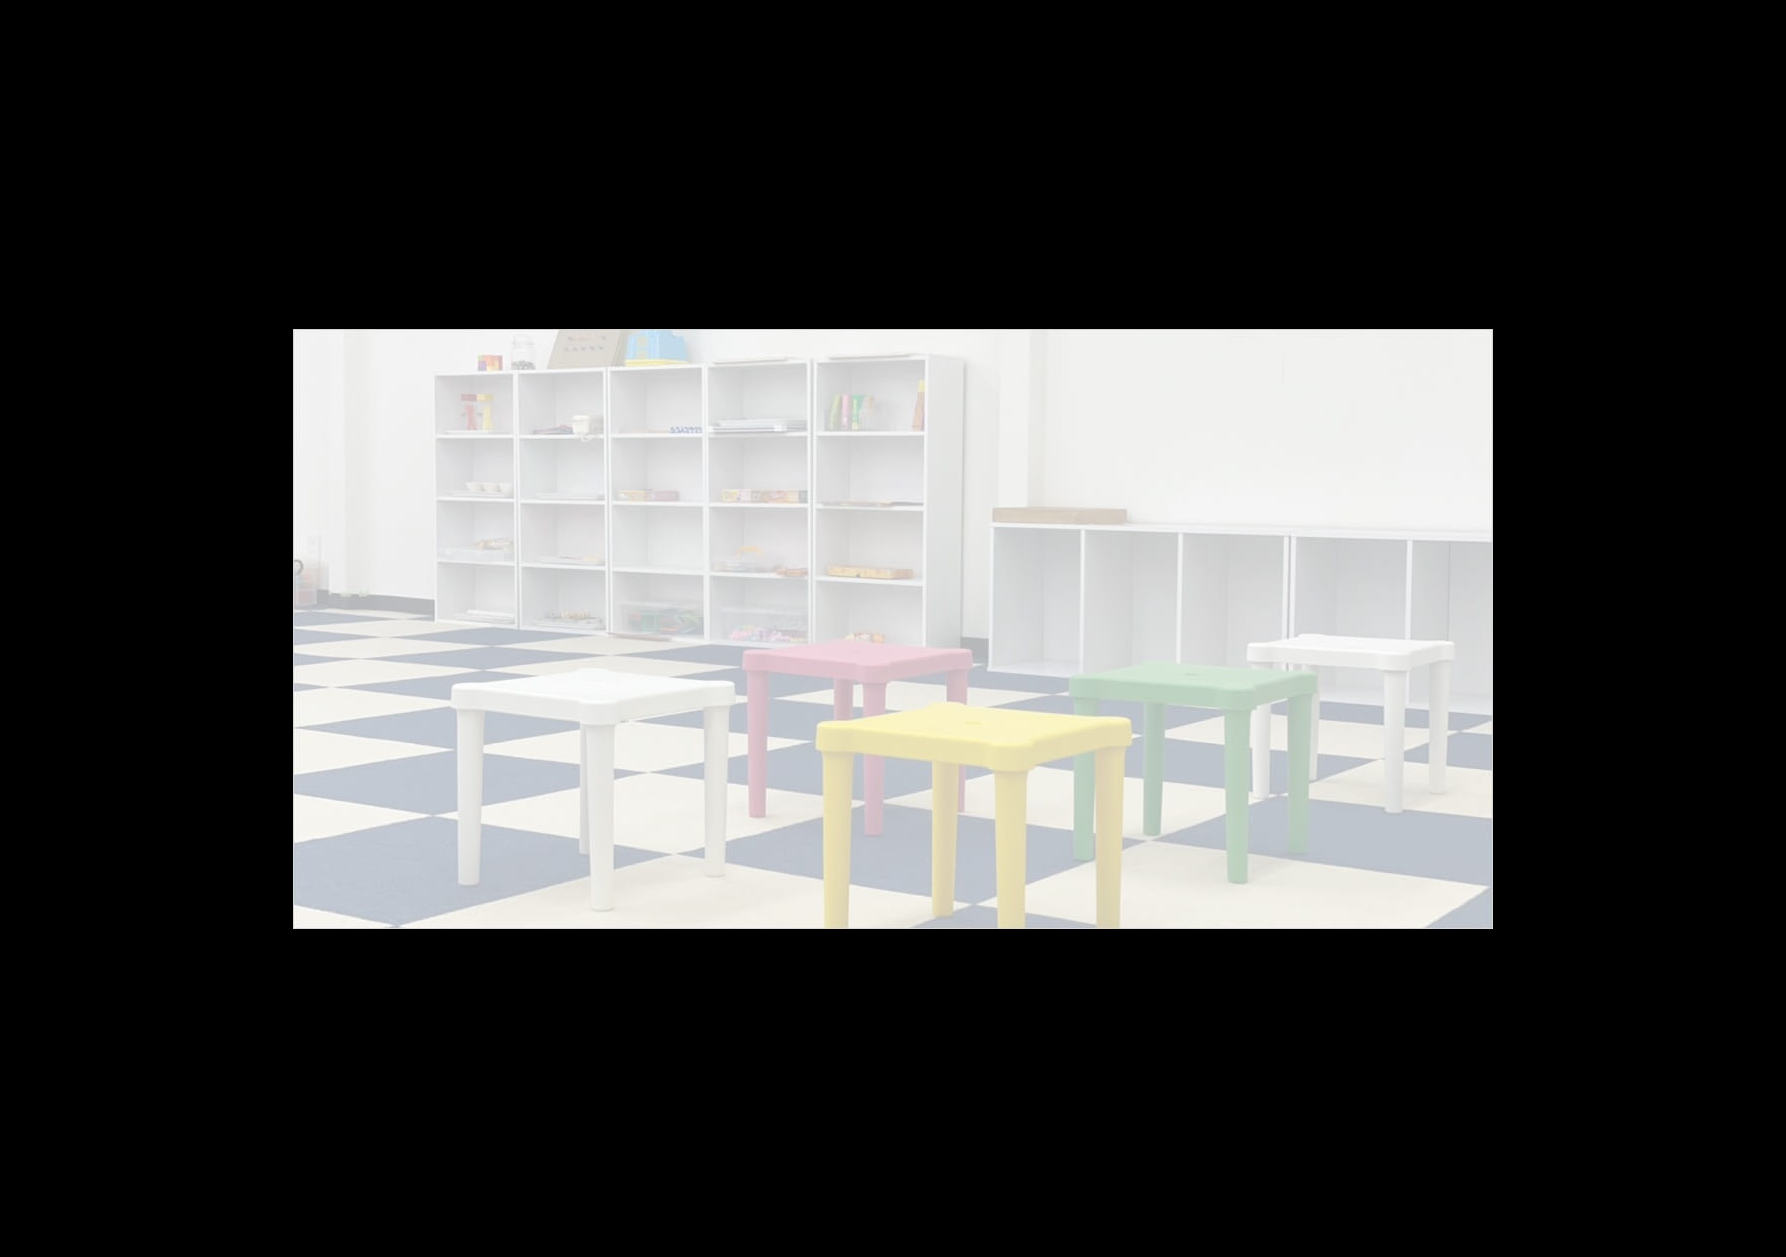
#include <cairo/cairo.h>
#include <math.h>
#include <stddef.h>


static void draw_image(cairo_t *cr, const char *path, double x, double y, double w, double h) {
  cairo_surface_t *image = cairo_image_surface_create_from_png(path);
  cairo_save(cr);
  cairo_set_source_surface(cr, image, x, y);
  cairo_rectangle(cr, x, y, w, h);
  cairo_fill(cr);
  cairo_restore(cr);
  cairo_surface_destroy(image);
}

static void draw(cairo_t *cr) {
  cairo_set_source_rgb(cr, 0, 0, 0);
  cairo_paint(cr);
  draw_image(cr, "images/1.png", 293, 329, 1200, 600);
}

int main(void) {
  cairo_surface_t *surface = cairo_image_surface_create(CAIRO_FORMAT_RGB24, 1786, 1257);
  cairo_t *cr = cairo_create(surface);
  cairo_font_options_t *options = cairo_font_options_create();
  cairo_font_options_set_hint_metrics(options, CAIRO_HINT_METRICS_OFF);
  cairo_font_options_set_hint_style(options, CAIRO_HINT_STYLE_NONE);
  cairo_set_font_options(cr, options);
  cairo_set_miter_limit(cr, 4);
  draw(cr);
  cairo_surface_write_to_png(surface, "out.png");
  cairo_font_options_destroy(options);
  cairo_destroy(cr);
  cairo_surface_destroy(surface);
  return 0;
}
